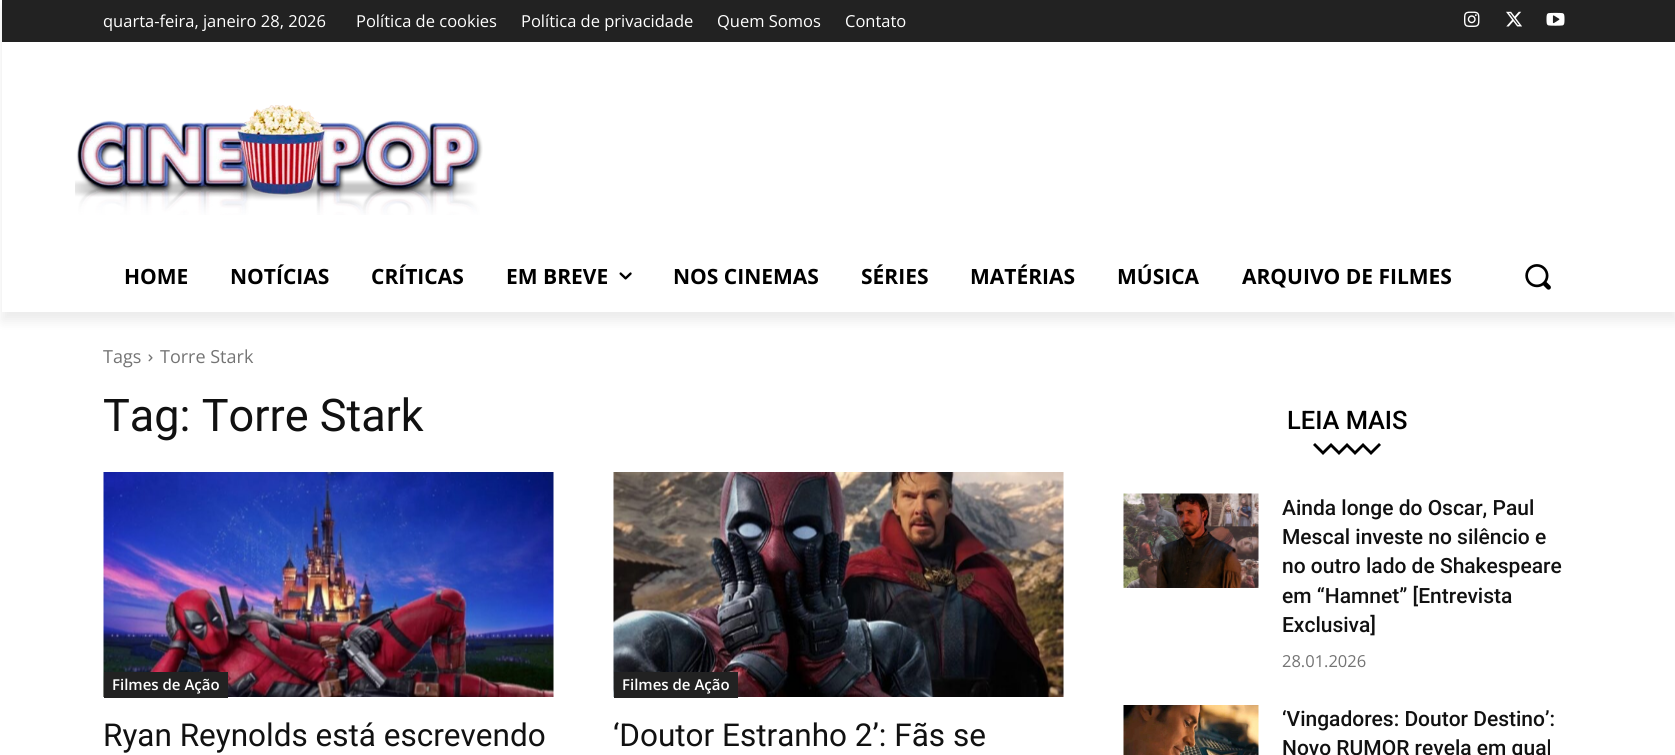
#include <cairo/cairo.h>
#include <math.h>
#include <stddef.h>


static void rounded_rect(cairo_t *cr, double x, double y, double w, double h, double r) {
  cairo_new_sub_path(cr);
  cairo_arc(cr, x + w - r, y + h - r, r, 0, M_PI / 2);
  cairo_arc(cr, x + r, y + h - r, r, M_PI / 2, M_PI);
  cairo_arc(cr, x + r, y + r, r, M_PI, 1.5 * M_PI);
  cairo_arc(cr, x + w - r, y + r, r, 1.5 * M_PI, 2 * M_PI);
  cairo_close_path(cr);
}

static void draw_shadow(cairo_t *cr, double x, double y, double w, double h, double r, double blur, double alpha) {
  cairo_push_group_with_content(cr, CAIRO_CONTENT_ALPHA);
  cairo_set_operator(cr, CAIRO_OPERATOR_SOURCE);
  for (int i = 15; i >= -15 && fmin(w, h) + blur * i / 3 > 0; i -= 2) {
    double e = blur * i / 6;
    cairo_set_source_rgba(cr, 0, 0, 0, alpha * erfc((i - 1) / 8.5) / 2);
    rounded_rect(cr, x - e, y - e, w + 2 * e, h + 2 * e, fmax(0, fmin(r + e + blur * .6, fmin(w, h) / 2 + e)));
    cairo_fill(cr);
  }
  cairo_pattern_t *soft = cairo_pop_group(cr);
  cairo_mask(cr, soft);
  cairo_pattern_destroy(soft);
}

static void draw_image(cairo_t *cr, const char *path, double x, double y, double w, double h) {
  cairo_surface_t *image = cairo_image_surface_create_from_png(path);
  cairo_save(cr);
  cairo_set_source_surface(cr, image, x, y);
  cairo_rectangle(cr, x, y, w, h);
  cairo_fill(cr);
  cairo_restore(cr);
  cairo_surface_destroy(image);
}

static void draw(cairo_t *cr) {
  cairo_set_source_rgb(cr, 1, 1, 1);
  cairo_paint(cr);
  cairo_set_source_rgb(cr, 34 / 255.0, 34 / 255.0, 34 / 255.0);
  cairo_rectangle(cr, 2, 0, 1673, 42);
  cairo_fill(cr);
  draw_image(cr, "images/1.png", 1464, 11, 16, 16);
  draw_image(cr, "images/2.png", 1506, 11, 16, 16);
  draw_image(cr, "images/3.png", 1546, 12, 19, 14);
  draw_image(cr, "images/4.png", 75, 105, 408, 110);
  cairo_save(cr);
  cairo_set_fill_rule(cr, CAIRO_FILL_RULE_EVEN_ODD);
  cairo_new_path(cr);
  cairo_move_to(cr, 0, 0);
  cairo_line_to(cr, 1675, 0);
  cairo_line_to(cr, 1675, 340);
  cairo_line_to(cr, 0, 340);
  cairo_close_path(cr);
  cairo_move_to(cr, 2, 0);
  cairo_line_to(cr, 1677, 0);
  cairo_line_to(cr, 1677, 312);
  cairo_line_to(cr, 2, 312);
  cairo_close_path(cr);
  cairo_clip(cr);
  cairo_set_source_rgb(cr, 0, 0, 0);
  draw_shadow(cr, 2, 9, 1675, 312, 0, 6, 0.08);
  cairo_restore(cr);
  draw_image(cr, "images/5.png", 619, 272, 13, 8);
  draw_image(cr, "images/6.png", 1525, 264, 26, 26);
  draw_image(cr, "images/7.png", 148, 354, 5, 8);
  draw_image(cr, "images/8.png", 103, 472, 451, 225);
  cairo_rectangle(cr, 104, 672, 124, 26);
  cairo_fill(cr);
  draw_image(cr, "images/9.png", 613, 472, 451, 225);
  cairo_rectangle(cr, 614, 672, 124, 26);
  cairo_fill(cr);
  cairo_set_source_rgb(cr, 0, 0, 0);
  cairo_new_path(cr);
  cairo_move_to(cr, 1381, 445);
  cairo_line_to(cr, 1371, 455);
  cairo_line_to(cr, 1363, 447);
  cairo_line_to(cr, 1355, 455);
  cairo_line_to(cr, 1347, 447);
  cairo_line_to(cr, 1339, 455);
  cairo_line_to(cr, 1331, 447);
  cairo_line_to(cr, 1323, 455);
  cairo_line_to(cr, 1313, 445);
  cairo_line_to(cr, 1315, 443);
  cairo_line_to(cr, 1323, 451);
  cairo_line_to(cr, 1331, 443);
  cairo_line_to(cr, 1339, 451);
  cairo_line_to(cr, 1347, 443);
  cairo_line_to(cr, 1355, 451);
  cairo_line_to(cr, 1363, 443);
  cairo_line_to(cr, 1371, 451);
  cairo_line_to(cr, 1379, 443);
  cairo_close_path(cr);
  cairo_fill(cr);
  draw_image(cr, "images/10.png", 1123, 493, 136, 95);
  draw_image(cr, "images/11.png", 1123, 705, 136, 50);
  cairo_select_font_face(cr, "Open Sans", CAIRO_FONT_SLANT_NORMAL, CAIRO_FONT_WEIGHT_NORMAL);
  cairo_set_font_size(cr, 16.5);
  cairo_set_source_rgb(cr, 1, 1, 1);
  cairo_move_to(cr, 103, 27);
  cairo_show_text(cr, "quarta-feira, janeiro 28, 2026");
  cairo_move_to(cr, 356, 27);
  cairo_show_text(cr, "Política de cookies");
  cairo_move_to(cr, 521, 27);
  cairo_show_text(cr, "Política de privacidade");
  cairo_move_to(cr, 717, 27);
  cairo_show_text(cr, "Quem Somos");
  cairo_move_to(cr, 845, 27);
  cairo_show_text(cr, "Contato");
  cairo_select_font_face(cr, "Open Sans", CAIRO_FONT_SLANT_NORMAL, CAIRO_FONT_WEIGHT_BOLD);
  cairo_set_font_size(cr, 21);
  cairo_set_source_rgb(cr, 0, 0, 0);
  cairo_move_to(cr, 124, 284);
  cairo_show_text(cr, "HOME");
  cairo_move_to(cr, 230, 284);
  cairo_show_text(cr, "NOTÍCIAS");
  cairo_move_to(cr, 371, 284);
  cairo_show_text(cr, "CRÍTICAS");
  cairo_move_to(cr, 506, 284);
  cairo_show_text(cr, "EM BREVE");
  cairo_move_to(cr, 673, 284);
  cairo_show_text(cr, "NOS CINEMAS");
  cairo_move_to(cr, 861, 284);
  cairo_show_text(cr, "SÉRIES");
  cairo_move_to(cr, 970, 284);
  cairo_show_text(cr, "MATÉRIAS");
  cairo_move_to(cr, 1117, 284);
  cairo_show_text(cr, "MÚSICA");
  cairo_move_to(cr, 1242, 284);
  cairo_show_text(cr, "ARQUIVO DE FILMES");
  cairo_select_font_face(cr, "Open Sans", CAIRO_FONT_SLANT_NORMAL, CAIRO_FONT_WEIGHT_NORMAL);
  cairo_set_font_size(cr, 18);
  cairo_set_source_rgb(cr, 116 / 255.0, 116 / 255.0, 116 / 255.0);
  cairo_move_to(cr, 103, 363);
  cairo_show_text(cr, "Tags");
  cairo_move_to(cr, 160, 363);
  cairo_show_text(cr, "Torre Stark");
  cairo_select_font_face(cr, "Roboto", CAIRO_FONT_SLANT_NORMAL, CAIRO_FONT_WEIGHT_NORMAL);
  cairo_set_font_size(cr, 45);
  cairo_set_source_rgb(cr, 17 / 255.0, 17 / 255.0, 17 / 255.0);
  cairo_move_to(cr, 103, 431);
  cairo_show_text(cr, "Tag: Torre Stark");
  cairo_select_font_face(cr, "Open Sans SemiBold", CAIRO_FONT_SLANT_NORMAL, CAIRO_FONT_WEIGHT_NORMAL);
  cairo_set_font_size(cr, 15);
  cairo_set_source_rgb(cr, 1, 1, 1);
  cairo_move_to(cr, 112, 690);
  cairo_show_text(cr, "Filmes de Ação");
  cairo_select_font_face(cr, "Roboto", CAIRO_FONT_SLANT_NORMAL, CAIRO_FONT_WEIGHT_NORMAL);
  cairo_set_font_size(cr, 31.5);
  cairo_set_source_rgb(cr, 17 / 255.0, 17 / 255.0, 17 / 255.0);
  cairo_move_to(cr, 103, 746);
  cairo_show_text(cr, "Ryan Reynolds está escrevendo");
  cairo_select_font_face(cr, "Open Sans SemiBold", CAIRO_FONT_SLANT_NORMAL, CAIRO_FONT_WEIGHT_NORMAL);
  cairo_set_font_size(cr, 15);
  cairo_set_source_rgb(cr, 1, 1, 1);
  cairo_move_to(cr, 622, 690);
  cairo_show_text(cr, "Filmes de Ação");
  cairo_select_font_face(cr, "Roboto", CAIRO_FONT_SLANT_NORMAL, CAIRO_FONT_WEIGHT_NORMAL);
  cairo_set_font_size(cr, 31.5);
  cairo_set_source_rgb(cr, 17 / 255.0, 17 / 255.0, 17 / 255.0);
  cairo_move_to(cr, 613, 746);
  cairo_show_text(cr, "‘Doutor Estranho 2’: Fãs se");
  cairo_select_font_face(cr, "Roboto Medium", CAIRO_FONT_SLANT_NORMAL, CAIRO_FONT_WEIGHT_NORMAL);
  cairo_set_font_size(cr, 25.5);
  cairo_set_source_rgb(cr, 0, 0, 0);
  cairo_move_to(cr, 1287, 429);
  cairo_show_text(cr, "LEIA MAIS");
  cairo_set_font_size(cr, 21);
  cairo_set_source_rgb(cr, 17 / 255.0, 17 / 255.0, 17 / 255.0);
  cairo_move_to(cr, 1282, 515);
  cairo_show_text(cr, "Ainda longe do Oscar, Paul");
  cairo_move_to(cr, 1282, 544);
  cairo_show_text(cr, "Mescal investe no silêncio e");
  cairo_move_to(cr, 1282, 573);
  cairo_show_text(cr, "no outro lado de Shakespeare");
  cairo_move_to(cr, 1282, 603);
  cairo_show_text(cr, "em “Hamnet” [Entrevista");
  cairo_move_to(cr, 1282, 632);
  cairo_show_text(cr, "Exclusiva]");
  cairo_select_font_face(cr, "Open Sans", CAIRO_FONT_SLANT_NORMAL, CAIRO_FONT_WEIGHT_NORMAL);
  cairo_set_font_size(cr, 16.5);
  cairo_set_source_rgb(cr, 116 / 255.0, 116 / 255.0, 116 / 255.0);
  cairo_move_to(cr, 1282, 667);
  cairo_show_text(cr, "28.01.2026");
  cairo_select_font_face(cr, "Roboto Medium", CAIRO_FONT_SLANT_NORMAL, CAIRO_FONT_WEIGHT_NORMAL);
  cairo_set_font_size(cr, 21);
  cairo_set_source_rgb(cr, 17 / 255.0, 17 / 255.0, 17 / 255.0);
  cairo_move_to(cr, 1282, 726);
  cairo_show_text(cr, "‘Vingadores: Doutor Destino’:");
  cairo_move_to(cr, 1282, 755);
  cairo_show_text(cr, "Novo RUMOR revela em qual");
}

int main(void) {
  cairo_surface_t *surface = cairo_image_surface_create(CAIRO_FORMAT_RGB24, 1675, 755);
  cairo_t *cr = cairo_create(surface);
  cairo_font_options_t *options = cairo_font_options_create();
  cairo_font_options_set_hint_metrics(options, CAIRO_HINT_METRICS_OFF);
  cairo_font_options_set_hint_style(options, CAIRO_HINT_STYLE_NONE);
  cairo_set_font_options(cr, options);
  cairo_set_miter_limit(cr, 4);
  draw(cr);
  cairo_surface_write_to_png(surface, "out.png");
  cairo_font_options_destroy(options);
  cairo_destroy(cr);
  cairo_surface_destroy(surface);
  return 0;
}
